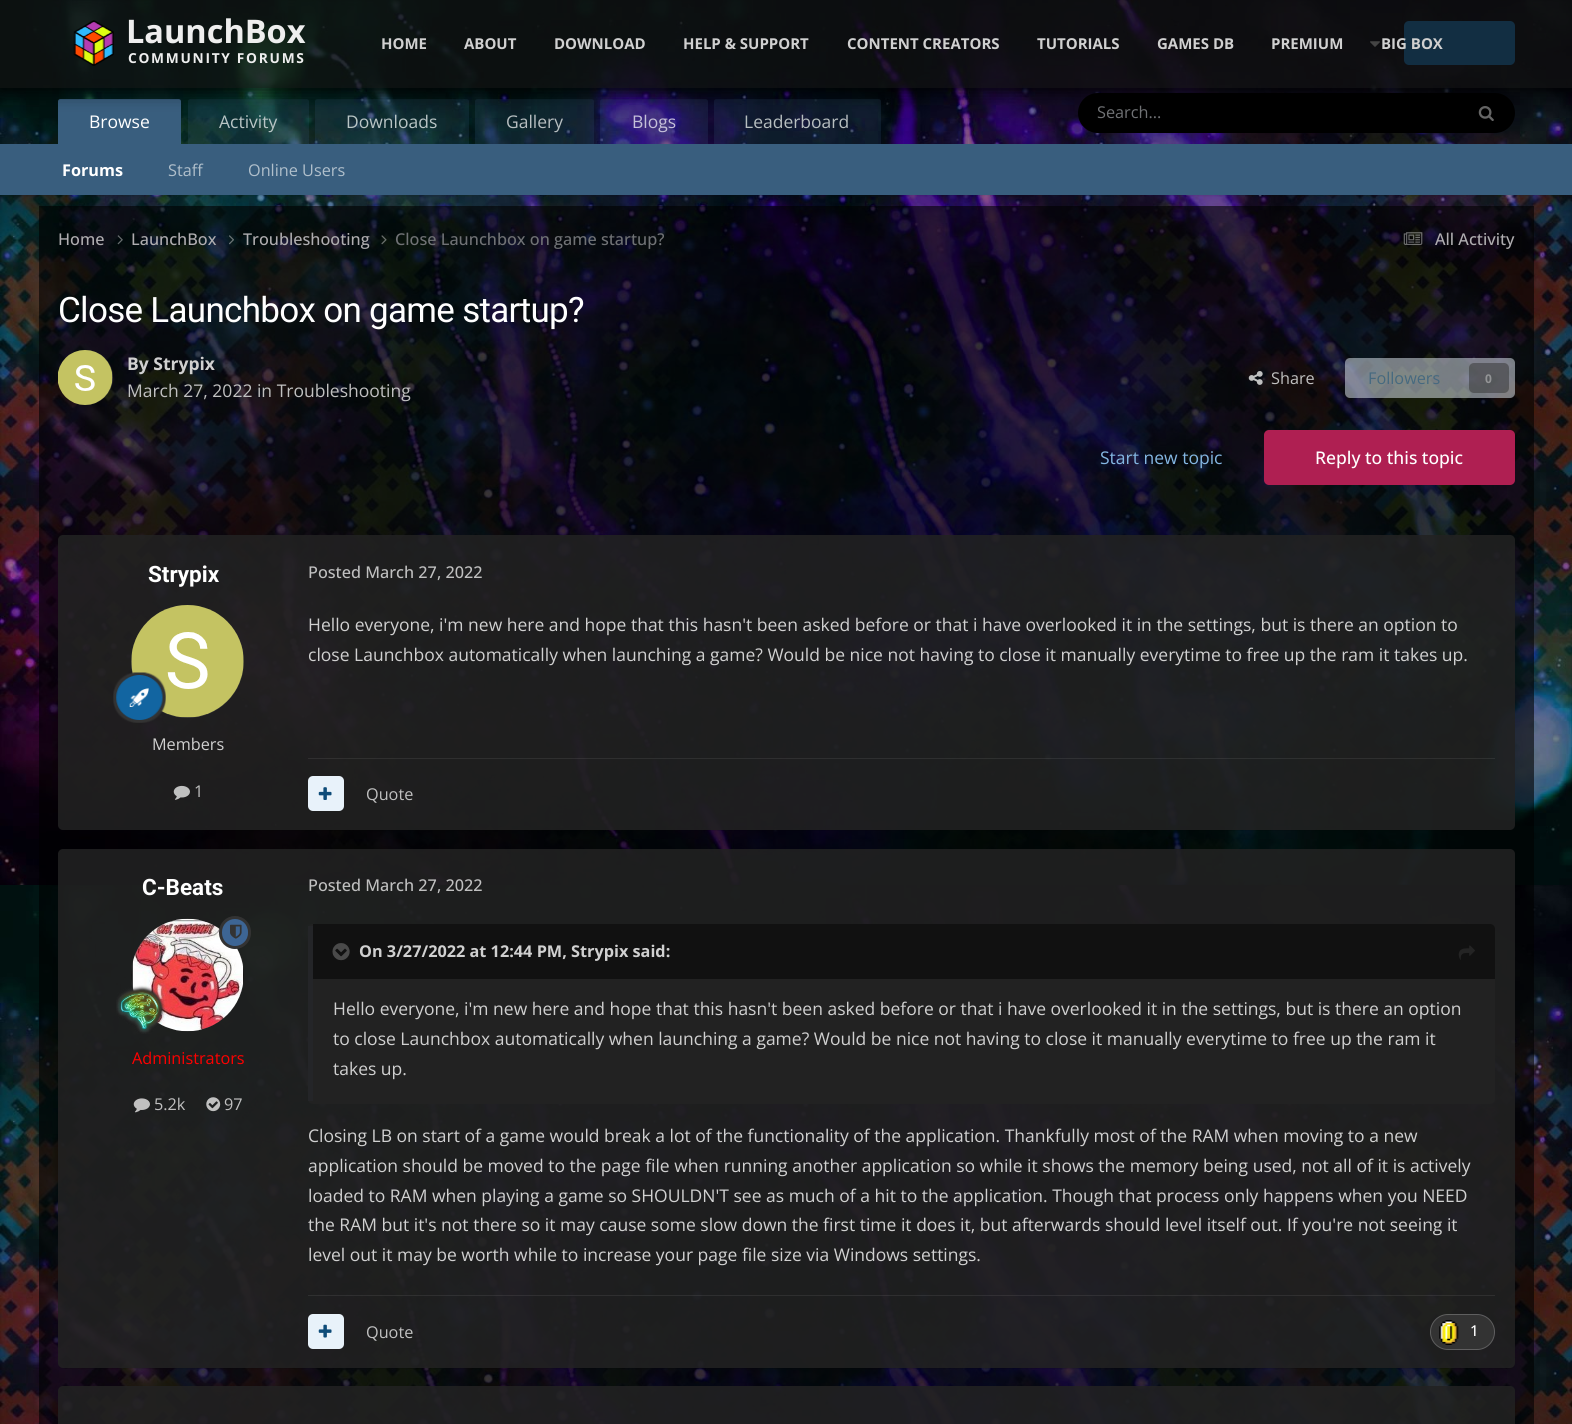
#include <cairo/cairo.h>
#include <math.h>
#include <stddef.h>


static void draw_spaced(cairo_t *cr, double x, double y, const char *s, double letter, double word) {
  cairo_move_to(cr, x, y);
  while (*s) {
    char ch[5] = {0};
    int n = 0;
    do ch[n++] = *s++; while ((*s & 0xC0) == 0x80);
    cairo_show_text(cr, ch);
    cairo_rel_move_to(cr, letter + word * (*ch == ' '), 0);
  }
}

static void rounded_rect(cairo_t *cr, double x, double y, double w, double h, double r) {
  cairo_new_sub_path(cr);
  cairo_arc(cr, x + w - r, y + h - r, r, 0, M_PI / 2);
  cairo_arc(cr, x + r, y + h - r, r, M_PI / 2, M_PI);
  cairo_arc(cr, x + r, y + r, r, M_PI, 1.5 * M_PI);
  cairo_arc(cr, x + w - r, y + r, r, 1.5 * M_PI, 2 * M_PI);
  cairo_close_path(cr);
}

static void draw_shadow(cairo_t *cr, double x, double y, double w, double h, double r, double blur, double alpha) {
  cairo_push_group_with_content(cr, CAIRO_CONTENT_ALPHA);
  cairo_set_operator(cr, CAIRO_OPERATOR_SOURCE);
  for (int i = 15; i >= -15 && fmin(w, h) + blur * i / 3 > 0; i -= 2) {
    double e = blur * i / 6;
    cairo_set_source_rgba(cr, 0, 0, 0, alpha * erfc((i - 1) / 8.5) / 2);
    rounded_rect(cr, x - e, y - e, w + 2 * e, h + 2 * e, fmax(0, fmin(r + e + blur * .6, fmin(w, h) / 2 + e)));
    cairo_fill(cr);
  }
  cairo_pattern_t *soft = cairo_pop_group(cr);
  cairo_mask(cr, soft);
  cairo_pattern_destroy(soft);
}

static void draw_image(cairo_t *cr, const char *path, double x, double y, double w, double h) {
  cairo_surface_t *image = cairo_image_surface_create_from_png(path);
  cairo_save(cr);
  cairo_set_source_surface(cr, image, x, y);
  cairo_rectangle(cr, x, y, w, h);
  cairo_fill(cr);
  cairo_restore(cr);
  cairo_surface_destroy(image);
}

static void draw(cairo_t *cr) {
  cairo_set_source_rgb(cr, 1, 1, 1);
  cairo_paint(cr);
  draw_image(cr, "images/1.png", 0, 0, 1572, 1424);
  draw_image(cr, "images/3.png", 1370, 41, 10, 6);
  cairo_set_source_rgb(cr, 23 / 255.0, 126 / 255.0, 201 / 255.0);
  rounded_rect(cr, 1404, 21, 111, 44, 5);
  cairo_fill(cr);
  cairo_set_source_rgb(cr, 0, 0, 0);
  rounded_rect(cr, 1078, 93, 437, 40, 20);
  cairo_fill(cr);
  draw_image(cr, "images/4.png", 1478, 106, 16, 15);
  cairo_set_source_rgb(cr, 0, 0, 0);
  draw_shadow(cr, 0, 145, 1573, 51, 0, 1, 0.1);
  cairo_set_source_rgb(cr, 57 / 255.0, 94 / 255.0, 126 / 255.0);
  cairo_new_path(cr);
  cairo_move_to(cr, 60.5, 99);
  cairo_line_to(cr, 178.5, 99);
  cairo_curve_to(cr, 180, 99, 181, 100, 181, 101.5);
  cairo_line_to(cr, 181, 144);
  cairo_line_to(cr, 58, 144);
  cairo_line_to(cr, 58, 101.5);
  cairo_curve_to(cr, 58, 100, 59, 99, 60.5, 99);
  cairo_close_path(cr);
  cairo_fill(cr);
  cairo_set_source_rgba(cr, 57 / 255.0, 94 / 255.0, 126 / 255.0, 0.2);
  cairo_new_path(cr);
  cairo_move_to(cr, 317.5, 99);
  cairo_line_to(cr, 466.5, 99);
  cairo_curve_to(cr, 468, 99, 469, 100, 469, 101.5);
  cairo_line_to(cr, 469, 144);
  cairo_line_to(cr, 315, 144);
  cairo_line_to(cr, 315, 101.5);
  cairo_curve_to(cr, 315, 100, 316, 99, 317.5, 99);
  cairo_close_path(cr);
  cairo_fill(cr);
  cairo_new_path(cr);
  cairo_move_to(cr, 477.5, 99);
  cairo_line_to(cr, 591.5, 99);
  cairo_curve_to(cr, 593, 99, 594, 100, 594, 101.5);
  cairo_line_to(cr, 594, 144);
  cairo_line_to(cr, 475, 144);
  cairo_line_to(cr, 475, 101.5);
  cairo_curve_to(cr, 475, 100, 476, 99, 477.5, 99);
  cairo_close_path(cr);
  cairo_fill(cr);
  cairo_new_path(cr);
  cairo_move_to(cr, 602.5, 99);
  cairo_line_to(cr, 705.5, 99);
  cairo_curve_to(cr, 707, 99, 708, 100, 708, 101.5);
  cairo_line_to(cr, 708, 144);
  cairo_line_to(cr, 600, 144);
  cairo_line_to(cr, 600, 101.5);
  cairo_curve_to(cr, 600, 100, 601, 99, 602.5, 99);
  cairo_close_path(cr);
  cairo_fill(cr);
  cairo_new_path(cr);
  cairo_move_to(cr, 716.5, 99);
  cairo_line_to(cr, 878.5, 99);
  cairo_curve_to(cr, 880, 99, 881, 100, 881, 101.5);
  cairo_line_to(cr, 881, 144);
  cairo_line_to(cr, 714, 144);
  cairo_line_to(cr, 714, 101.5);
  cairo_curve_to(cr, 714, 100, 715, 99, 716.5, 99);
  cairo_close_path(cr);
  cairo_fill(cr);
  cairo_new_path(cr);
  cairo_move_to(cr, 190.5, 99);
  cairo_line_to(cr, 306.5, 99);
  cairo_curve_to(cr, 308, 99, 309, 100, 309, 101.5);
  cairo_line_to(cr, 309, 144);
  cairo_line_to(cr, 188, 144);
  cairo_line_to(cr, 188, 101.5);
  cairo_curve_to(cr, 188, 100, 189, 99, 190.5, 99);
  cairo_close_path(cr);
  cairo_fill(cr);
  cairo_save(cr);
  cairo_set_fill_rule(cr, CAIRO_FILL_RULE_EVEN_ODD);
  cairo_new_path(cr);
  cairo_move_to(cr, 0, 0);
  cairo_line_to(cr, 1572, 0);
  cairo_line_to(cr, 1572, 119);
  cairo_line_to(cr, 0, 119);
  cairo_close_path(cr);
  cairo_move_to(cr, 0, 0);
  cairo_line_to(cr, 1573, 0);
  cairo_line_to(cr, 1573, 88);
  cairo_line_to(cr, 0, 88);
  cairo_close_path(cr);
  cairo_clip(cr);
  cairo_set_source_rgb(cr, 0, 0, 0);
  draw_shadow(cr, 0, 1, 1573, 88, 0, 9.5, 1);
  cairo_restore(cr);
  cairo_set_source_rgba(cr, 17 / 255.0, 17 / 255.0, 17 / 255.0, 0.73);
  cairo_rectangle(cr, 0, 0, 1572, 88);
  cairo_fill(cr);
  draw_image(cr, "images/2.png", 73, 20, 41, 46);
  cairo_set_source_rgb(cr, 57 / 255.0, 94 / 255.0, 126 / 255.0);
  cairo_rectangle(cr, 0, 144, 1572, 51);
  cairo_fill(cr);
  cairo_set_source_rgba(cr, 0, 0, 0, 0.6);
  cairo_rectangle(cr, 39, 206, 1495, 1218);
  cairo_fill(cr);
  draw_image(cr, "images/5.png", 117, 235, 6, 10);
  draw_image(cr, "images/6.png", 229, 235, 5, 10);
  draw_image(cr, "images/7.png", 381, 235, 6, 10);
  draw_image(cr, "images/8.png", 1403, 232, 20, 13);
  cairo_set_source_rgb(cr, 51 / 255.0, 51 / 255.0, 51 / 255.0);
  cairo_arc(cr, 85.5, 377.5, 27.5, 0, 2 * M_PI);
  cairo_fill(cr);
  draw_image(cr, "images/9.png", 58, 350, 55, 55);
  draw_image(cr, "images/10.png", 1248, 371, 15, 14);
  cairo_set_source_rgba(cr, 232 / 255.0, 242 / 255.0, 250 / 255.0, 0.5);
  rounded_rect(cr, 1345, 358, 170, 40, 5);
  cairo_fill(cr);
  cairo_set_source_rgba(cr, 51 / 255.0, 51 / 255.0, 51 / 255.0, 0.5);
  rounded_rect(cr, 1469, 363, 40, 30, 5);
  cairo_fill(cr);
  cairo_set_source_rgb(cr, 175 / 255.0, 31 / 255.0, 82 / 255.0);
  rounded_rect(cr, 1264, 430, 251, 55, 5);
  cairo_fill(cr);
  cairo_set_source_rgba(cr, 0, 0, 0, 0.1);
  cairo_new_path(cr);
  cairo_move_to(cr, 58, 828);
  cairo_curve_to(cr, 59, 830, 61, 831, 63, 831);
  cairo_line_to(cr, 1510, 831);
  cairo_curve_to(cr, 1513, 831, 1515, 829, 1515, 826);
  cairo_line_to(cr, 1515, 825);
  cairo_curve_to(cr, 1515, 828, 1513, 830, 1510, 830);
  cairo_line_to(cr, 62, 830);
  cairo_curve_to(cr, 61, 830, 59, 829, 58, 828);
  cairo_close_path(cr);
  cairo_fill(cr);
  cairo_set_source_rgba(cr, 34 / 255.0, 34 / 255.0, 34 / 255.0, 0.87);
  rounded_rect(cr, 58, 535, 1457, 295, 5);
  cairo_fill(cr);
  cairo_set_source_rgb(cr, 51 / 255.0, 51 / 255.0, 51 / 255.0);
  cairo_arc(cr, 187.5, 661.5, 56.5, 0, 2 * M_PI);
  cairo_fill(cr);
  draw_image(cr, "images/11.png", 131, 605, 113, 113);
  draw_image(cr, "images/12.png", 113, 672, 53, 51);
  draw_image(cr, "images/13.png", 173, 785, 17, 15);
  cairo_set_source_rgba(cr, 208 / 255.0, 208 / 255.0, 208 / 255.0, 0.1);
  cairo_rectangle(cr, 308, 758, 1187, 1);
  cairo_fill(cr);
  cairo_set_source_rgb(cr, 232 / 255.0, 242 / 255.0, 250 / 255.0);
  rounded_rect(cr, 308, 776, 36, 35, 5);
  cairo_fill(cr);
  draw_image(cr, "images/14.png", 318, 787, 14, 13);
  cairo_set_source_rgba(cr, 0, 0, 0, 0.1);
  cairo_new_path(cr);
  cairo_move_to(cr, 58, 1365);
  cairo_curve_to(cr, 58, 1367, 61, 1369, 63, 1369);
  cairo_line_to(cr, 1510, 1369);
  cairo_curve_to(cr, 1513, 1369, 1515, 1367, 1515, 1364);
  cairo_line_to(cr, 1515, 1362);
  cairo_curve_to(cr, 1515, 1365, 1513, 1368, 1510, 1368);
  cairo_line_to(cr, 62, 1368);
  cairo_curve_to(cr, 61, 1368, 59, 1366, 58, 1365);
  cairo_close_path(cr);
  cairo_fill(cr);
  cairo_set_source_rgba(cr, 34 / 255.0, 34 / 255.0, 34 / 255.0, 0.87);
  rounded_rect(cr, 58, 849, 1457, 519, 5);
  cairo_fill(cr);
  cairo_set_source_rgb(cr, 51 / 255.0, 51 / 255.0, 51 / 255.0);
  rounded_rect(cr, 131, 919, 113, 112, 56);
  cairo_fill(cr);
  draw_image(cr, "images/16.png", 131, 918, 113, 114);
  cairo_set_source_rgb(cr, 61 / 255.0, 101 / 255.0, 148 / 255.0);
  rounded_rect(cr, 220.5, 917.5, 29, 30, 14.5);
  cairo_fill_preserve(cr);
  cairo_set_source_rgb(cr, 51 / 255.0, 51 / 255.0, 51 / 255.0);
  cairo_set_line_width(cr, 3);
  cairo_stroke(cr);
  draw_image(cr, "images/15.png", 230, 924, 12, 15);
  draw_image(cr, "images/17.png", 116, 985, 49, 49);
  draw_image(cr, "images/18.png", 133, 1098, 17, 15);
  draw_image(cr, "images/19.png", 206, 1097, 15, 15);
  cairo_set_source_rgb(cr, 34 / 255.0, 34 / 255.0, 34 / 255.0);
  rounded_rect(cr, 308, 924, 1187, 180, 5);
  cairo_fill(cr);
  cairo_set_source_rgb(cr, 36 / 255.0, 37 / 255.0, 40 / 255.0);
  cairo_rectangle(cr, 308, 926, 5, 175);
  cairo_fill(cr);
  cairo_set_source_rgb(cr, 17 / 255.0, 17 / 255.0, 17 / 255.0);
  cairo_new_path(cr);
  cairo_move_to(cr, 313, 924);
  cairo_line_to(cr, 1490, 924);
  cairo_curve_to(cr, 1493, 924, 1495, 926, 1495, 929);
  cairo_line_to(cr, 1495, 979);
  cairo_line_to(cr, 313, 979);
  cairo_close_path(cr);
  cairo_fill(cr);
  draw_image(cr, "images/20.png", 332, 943, 18, 18);
  draw_image(cr, "images/21.png", 1458, 945, 17, 15);
  cairo_set_source_rgba(cr, 208 / 255.0, 208 / 255.0, 208 / 255.0, 0.1);
  cairo_rectangle(cr, 308, 1295, 1187, 1);
  cairo_fill(cr);
  cairo_set_source_rgb(cr, 232 / 255.0, 242 / 255.0, 250 / 255.0);
  rounded_rect(cr, 308, 1314, 36, 35, 5);
  cairo_fill(cr);
  draw_image(cr, "images/22.png", 318, 1324, 14, 14);
  cairo_set_source_rgb(cr, 51 / 255.0, 51 / 255.0, 51 / 255.0);
  rounded_rect(cr, 1431, 1315, 63, 34, 17);
  cairo_fill(cr);
  rounded_rect(cr, 1430.5, 1314.5, 64, 35, 17.5);
  cairo_set_source_rgba(cr, 192 / 255.0, 192 / 255.0, 192 / 255.0, 0.4);
  cairo_set_line_width(cr, 1);
  cairo_stroke(cr);
  draw_image(cr, "images/23.png", 1439, 1320, 20, 25);
  cairo_set_source_rgba(cr, 34 / 255.0, 34 / 255.0, 34 / 255.0, 0.87);
  rounded_rect(cr, 58, 1386, 1457, 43, 5);
  cairo_fill(cr);
  cairo_select_font_face(cr, "Open Sans", CAIRO_FONT_SLANT_NORMAL, CAIRO_FONT_WEIGHT_BOLD);
  cairo_set_font_size(cr, 32.5);
  cairo_set_source_rgb(cr, 238 / 255.0, 238 / 255.0, 238 / 255.0);
  cairo_move_to(cr, 126, 43);
  cairo_show_text(cr, "LaunchBox");
  cairo_set_font_size(cr, 13.75);
  draw_spaced(cr, 128, 63, "COMMUNITY FORUMS", 1.7, 0);
  cairo_set_font_size(cr, 15);
  cairo_set_source_rgb(cr, 208 / 255.0, 208 / 255.0, 208 / 255.0);
  cairo_move_to(cr, 381, 49);
  cairo_show_text(cr, "HOME");
  cairo_move_to(cr, 464, 49);
  cairo_show_text(cr, "ABOUT");
  cairo_move_to(cr, 554, 49);
  cairo_show_text(cr, "DOWNLOAD");
  cairo_move_to(cr, 683, 49);
  cairo_show_text(cr, "HELP & SUPPORT");
  cairo_move_to(cr, 847, 49);
  cairo_show_text(cr, "CONTENT CREATORS");
  cairo_move_to(cr, 1037, 49);
  cairo_show_text(cr, "TUTORIALS");
  cairo_move_to(cr, 1157, 49);
  cairo_show_text(cr, "GAMES DB");
  cairo_move_to(cr, 1271, 49);
  cairo_show_text(cr, "PREMIUM");
  cairo_move_to(cr, 1381, 49);
  cairo_show_text(cr, "BIG BOX");
  cairo_select_font_face(cr, "Open Sans", CAIRO_FONT_SLANT_NORMAL, CAIRO_FONT_WEIGHT_NORMAL);
  cairo_set_font_size(cr, 16.25);
  cairo_set_source_rgb(cr, 112 / 255.0, 114 / 255.0, 117 / 255.0);
  cairo_move_to(cr, 1097, 118);
  cairo_show_text(cr, "Search...");
  cairo_set_font_size(cr, 17.5);
  cairo_set_source_rgb(cr, 1, 1, 1);
  cairo_move_to(cr, 89, 128);
  cairo_show_text(cr, "Browse");
  cairo_select_font_face(cr, "Open Sans", CAIRO_FONT_SLANT_NORMAL, CAIRO_FONT_WEIGHT_BOLD);
  cairo_set_font_size(cr, 16.25);
  cairo_move_to(cr, 62, 176);
  cairo_show_text(cr, "Forums");
  cairo_select_font_face(cr, "Open Sans", CAIRO_FONT_SLANT_NORMAL, CAIRO_FONT_WEIGHT_NORMAL);
  cairo_set_source_rgb(cr, 176 / 255.0, 191 / 255.0, 203 / 255.0);
  cairo_move_to(cr, 168, 176);
  cairo_show_text(cr, "Staff");
  cairo_move_to(cr, 248, 176);
  cairo_show_text(cr, "Online Users");
  cairo_set_font_size(cr, 17.5);
  cairo_set_source_rgb(cr, 185 / 255.0, 197 / 255.0, 197 / 255.0);
  cairo_move_to(cr, 346, 128);
  cairo_show_text(cr, "Downloads");
  cairo_set_source_rgb(cr, 183 / 255.0, 190 / 255.0, 192 / 255.0);
  cairo_move_to(cr, 506, 128);
  cairo_show_text(cr, "Gallery");
  cairo_set_source_rgb(cr, 197 / 255.0, 192 / 255.0, 217 / 255.0);
  cairo_move_to(cr, 632, 128);
  cairo_show_text(cr, "Blogs");
  cairo_set_source_rgb(cr, 183 / 255.0, 190 / 255.0, 192 / 255.0);
  cairo_move_to(cr, 744, 128);
  cairo_show_text(cr, "Leaderboard");
  cairo_set_source_rgb(cr, 185 / 255.0, 197 / 255.0, 197 / 255.0);
  cairo_move_to(cr, 219, 128);
  cairo_show_text(cr, "Activity");
  cairo_select_font_face(cr, "Open Sans Medium", CAIRO_FONT_SLANT_NORMAL, CAIRO_FONT_WEIGHT_NORMAL);
  cairo_set_font_size(cr, 16.25);
  cairo_set_source_rgb(cr, 175 / 255.0, 173 / 255.0, 176 / 255.0);
  cairo_move_to(cr, 58, 245);
  cairo_show_text(cr, "Home");
  cairo_move_to(cr, 131, 245);
  cairo_show_text(cr, "LaunchBox");
  cairo_move_to(cr, 243, 245);
  cairo_show_text(cr, "Troubleshooting");
  cairo_set_source_rgb(cr, 112 / 255.0, 114 / 255.0, 117 / 255.0);
  cairo_move_to(cr, 395, 245);
  cairo_show_text(cr, "Close Launchbox on game startup?");
  cairo_set_source_rgb(cr, 175 / 255.0, 173 / 255.0, 176 / 255.0);
  cairo_move_to(cr, 1435, 245);
  cairo_show_text(cr, "All Activity");
  cairo_select_font_face(cr, "Roboto", CAIRO_FONT_SLANT_NORMAL, CAIRO_FONT_WEIGHT_NORMAL);
  cairo_set_font_size(cr, 35);
  cairo_set_source_rgb(cr, 1, 1, 1);
  draw_spaced(cr, 58, 322, "Close Launchbox on game startup?", -0.7, 0);
  cairo_select_font_face(cr, "Open Sans", CAIRO_FONT_SLANT_NORMAL, CAIRO_FONT_WEIGHT_BOLD);
  cairo_set_font_size(cr, 17.5);
  cairo_set_source_rgb(cr, 208 / 255.0, 208 / 255.0, 208 / 255.0);
  cairo_move_to(cr, 127, 370);
  cairo_show_text(cr, "By Strypix");
  cairo_select_font_face(cr, "Open Sans", CAIRO_FONT_SLANT_NORMAL, CAIRO_FONT_WEIGHT_NORMAL);
  cairo_set_source_rgb(cr, 192 / 255.0, 192 / 255.0, 192 / 255.0);
  cairo_move_to(cr, 127, 397);
  cairo_show_text(cr, "March 27, 2022 in Troubleshooting");
  cairo_set_font_size(cr, 16.25);
  cairo_move_to(cr, 1271, 384);
  cairo_show_text(cr, "Share");
  cairo_set_source_rgb(cr, 70 / 255.0, 105 / 255.0, 127 / 255.0);
  cairo_move_to(cr, 1368, 384);
  cairo_show_text(cr, "Followers");
  cairo_select_font_face(cr, "Open Sans", CAIRO_FONT_SLANT_NORMAL, CAIRO_FONT_WEIGHT_BOLD);
  cairo_set_font_size(cr, 12);
  cairo_set_source_rgb(cr, 147 / 255.0, 148 / 255.0, 150 / 255.0);
  cairo_move_to(cr, 1485, 383);
  cairo_show_text(cr, "0");
  cairo_select_font_face(cr, "Open Sans", CAIRO_FONT_SLANT_NORMAL, CAIRO_FONT_WEIGHT_NORMAL);
  cairo_set_font_size(cr, 17.5);
  cairo_set_source_rgb(cr, 132 / 255.0, 183 / 255.0, 226 / 255.0);
  cairo_move_to(cr, 1100, 464);
  cairo_show_text(cr, "Start new topic");
  cairo_select_font_face(cr, "Open Sans Medium", CAIRO_FONT_SLANT_NORMAL, CAIRO_FONT_WEIGHT_NORMAL);
  cairo_set_source_rgb(cr, 1, 1, 1);
  cairo_move_to(cr, 1315, 464);
  cairo_show_text(cr, "Reply to this topic");
  cairo_select_font_face(cr, "Roboto", CAIRO_FONT_SLANT_NORMAL, CAIRO_FONT_WEIGHT_BOLD);
  cairo_set_font_size(cr, 22.5);
  cairo_move_to(cr, 148, 582);
  cairo_show_text(cr, "Strypix");
  cairo_select_font_face(cr, "Open Sans", CAIRO_FONT_SLANT_NORMAL, CAIRO_FONT_WEIGHT_NORMAL);
  cairo_set_font_size(cr, 16.25);
  cairo_set_source_rgb(cr, 208 / 255.0, 208 / 255.0, 208 / 255.0);
  cairo_move_to(cr, 152, 750);
  cairo_show_text(cr, "Members");
  cairo_set_source_rgb(cr, 192 / 255.0, 192 / 255.0, 192 / 255.0);
  cairo_move_to(cr, 194, 797);
  cairo_show_text(cr, "1");
  cairo_select_font_face(cr, "Open Sans Medium", CAIRO_FONT_SLANT_NORMAL, CAIRO_FONT_WEIGHT_NORMAL);
  cairo_move_to(cr, 308, 578);
  cairo_show_text(cr, "Posted March 27, 2022");
  cairo_select_font_face(cr, "Open Sans", CAIRO_FONT_SLANT_NORMAL, CAIRO_FONT_WEIGHT_NORMAL);
  cairo_set_font_size(cr, 17.5);
  cairo_set_source_rgb(cr, 208 / 255.0, 208 / 255.0, 208 / 255.0);
  cairo_move_to(cr, 308, 631);
  cairo_show_text(cr, "Hello everyone, i'm new here and hope that this hasn't been asked before or that i have overlooked it in the settings, but is there an option to");
  cairo_move_to(cr, 308, 661);
  cairo_show_text(cr, "close Launchbox automatically when launching a game? Would be nice not having to close it manually everytime to free up the ram it takes up.");
  cairo_set_font_size(cr, 16.25);
  cairo_set_source_rgb(cr, 192 / 255.0, 192 / 255.0, 192 / 255.0);
  cairo_move_to(cr, 366, 800);
  cairo_show_text(cr, "Quote");
  cairo_select_font_face(cr, "Roboto", CAIRO_FONT_SLANT_NORMAL, CAIRO_FONT_WEIGHT_BOLD);
  cairo_set_font_size(cr, 22.5);
  cairo_set_source_rgb(cr, 1, 1, 1);
  cairo_move_to(cr, 142, 895);
  cairo_show_text(cr, "C-Beats");
  cairo_select_font_face(cr, "Open Sans", CAIRO_FONT_SLANT_NORMAL, CAIRO_FONT_WEIGHT_NORMAL);
  cairo_set_font_size(cr, 16.25);
  cairo_set_source_rgb(cr, 1, 0, 0);
  cairo_move_to(cr, 132, 1064);
  cairo_show_text(cr, "Administrators");
  cairo_set_source_rgb(cr, 192 / 255.0, 192 / 255.0, 192 / 255.0);
  cairo_move_to(cr, 154, 1110);
  cairo_show_text(cr, "5.2k");
  cairo_move_to(cr, 224, 1110);
  cairo_show_text(cr, "97");
  cairo_select_font_face(cr, "Open Sans Medium", CAIRO_FONT_SLANT_NORMAL, CAIRO_FONT_WEIGHT_NORMAL);
  cairo_move_to(cr, 308, 891);
  cairo_show_text(cr, "Posted March 27, 2022");
  cairo_select_font_face(cr, "Open Sans", CAIRO_FONT_SLANT_NORMAL, CAIRO_FONT_WEIGHT_BOLD);
  cairo_set_source_rgb(cr, 208 / 255.0, 208 / 255.0, 208 / 255.0);
  cairo_move_to(cr, 359, 957);
  cairo_show_text(cr, "On 3/27/2022 at 12:44 PM, Strypix said:");
  cairo_select_font_face(cr, "Open Sans", CAIRO_FONT_SLANT_NORMAL, CAIRO_FONT_WEIGHT_NORMAL);
  cairo_set_font_size(cr, 17.5);
  cairo_move_to(cr, 333, 1015);
  cairo_show_text(cr, "Hello everyone, i'm new here and hope that this hasn't been asked before or that i have overlooked it in the settings, but is there an option");
  cairo_move_to(cr, 333, 1045);
  cairo_show_text(cr, "to close Launchbox automatically when launching a game? Would be nice not having to close it manually everytime to free up the ram it");
  cairo_move_to(cr, 333, 1075);
  cairo_show_text(cr, "takes up.");
  cairo_move_to(cr, 308, 1142);
  cairo_show_text(cr, "Closing LB on start of a game would break a lot of the functionality of the application. Thankfully most of the RAM when moving to a new");
  cairo_move_to(cr, 308, 1172);
  cairo_show_text(cr, "application should be moved to the page file when running another application so while it shows the memory being used, not all of it is actively");
  cairo_move_to(cr, 308, 1202);
  cairo_show_text(cr, "loaded to RAM when playing a game so SHOULDN'T see as much of a hit to the application. Though that process only happens when you NEED");
  cairo_move_to(cr, 308, 1231);
  cairo_show_text(cr, "the RAM but it's not there so it may cause some slow down the first time it does it, but afterwards should level itself out. If you're not seeing it");
  cairo_move_to(cr, 308, 1261);
  cairo_show_text(cr, "level out it may be worth while to increase your page file size via Windows settings.");
  cairo_set_font_size(cr, 16.25);
  cairo_set_source_rgb(cr, 192 / 255.0, 192 / 255.0, 192 / 255.0);
  cairo_move_to(cr, 366, 1338);
  cairo_show_text(cr, "Quote");
  cairo_select_font_face(cr, "Open Sans Medium", CAIRO_FONT_SLANT_NORMAL, CAIRO_FONT_WEIGHT_NORMAL);
  cairo_set_font_size(cr, 15);
  cairo_set_source_rgb(cr, 1, 1, 1);
  cairo_move_to(cr, 1470, 1336);
  cairo_show_text(cr, "1");
}

int main(void) {
  cairo_surface_t *surface = cairo_image_surface_create(CAIRO_FORMAT_RGB24, 1572, 1424);
  cairo_t *cr = cairo_create(surface);
  cairo_font_options_t *options = cairo_font_options_create();
  cairo_font_options_set_hint_metrics(options, CAIRO_HINT_METRICS_OFF);
  cairo_font_options_set_hint_style(options, CAIRO_HINT_STYLE_NONE);
  cairo_set_font_options(cr, options);
  cairo_set_miter_limit(cr, 4);
  draw(cr);
  cairo_surface_write_to_png(surface, "out.png");
  cairo_font_options_destroy(options);
  cairo_destroy(cr);
  cairo_surface_destroy(surface);
  return 0;
}
